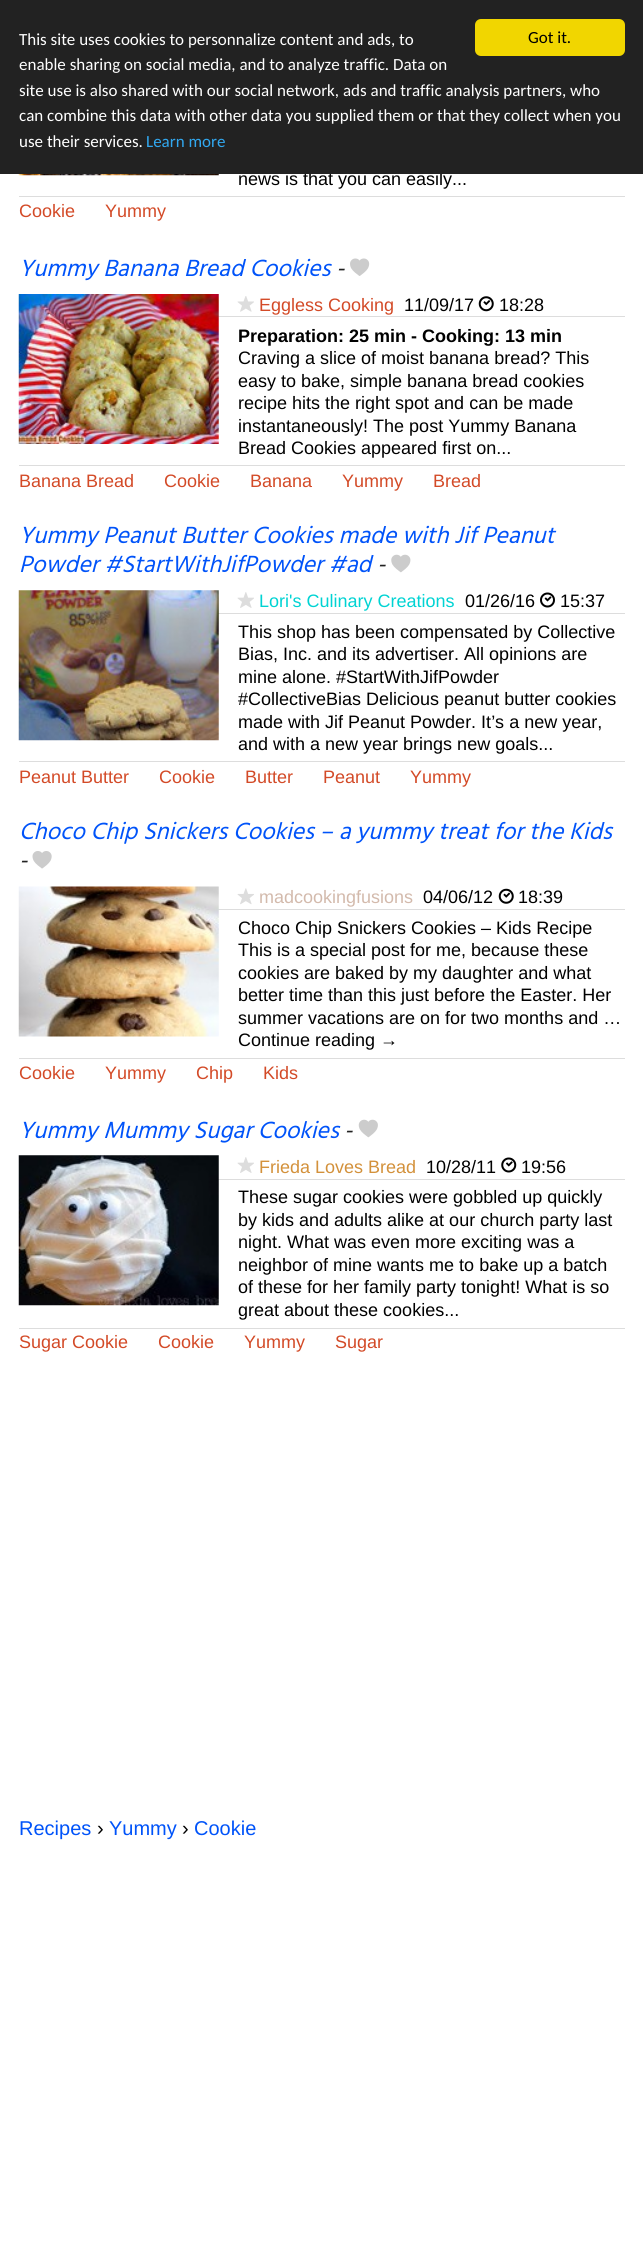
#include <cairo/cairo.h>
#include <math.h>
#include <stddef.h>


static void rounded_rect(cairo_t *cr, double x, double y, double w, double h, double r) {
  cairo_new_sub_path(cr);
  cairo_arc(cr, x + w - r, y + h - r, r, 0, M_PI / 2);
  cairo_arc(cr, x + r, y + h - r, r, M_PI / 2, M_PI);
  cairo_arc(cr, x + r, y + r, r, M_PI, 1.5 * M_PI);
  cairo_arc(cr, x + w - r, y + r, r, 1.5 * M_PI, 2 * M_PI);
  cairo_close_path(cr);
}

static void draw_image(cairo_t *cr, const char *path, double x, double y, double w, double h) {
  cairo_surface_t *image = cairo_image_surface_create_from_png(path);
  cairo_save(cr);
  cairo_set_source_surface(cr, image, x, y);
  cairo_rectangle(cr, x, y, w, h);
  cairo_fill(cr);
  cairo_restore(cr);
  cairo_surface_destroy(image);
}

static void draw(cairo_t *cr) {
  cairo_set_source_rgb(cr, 1, 1, 1);
  cairo_paint(cr);
  draw_image(cr, "images/1.png", 18, 174, 201, 2);
  cairo_set_source_rgb(cr, 221 / 255.0, 221 / 255.0, 221 / 255.0);
  cairo_rectangle(cr, 19, 196, 606, 1);
  cairo_fill(cr);
  draw_image(cr, "images/2.png", 350, 258, 20, 18);
  cairo_rectangle(cr, 218, 316, 407, 1);
  cairo_fill(cr);
  draw_image(cr, "images/3.png", 18, 294, 201, 150);
  draw_image(cr, "images/4.png", 237, 296, 17, 16);
  draw_image(cr, "images/5.png", 478, 296, 16, 16);
  cairo_rectangle(cr, 19, 465, 606, 1);
  cairo_fill(cr);
  draw_image(cr, "images/6.png", 391, 554, 20, 19);
  cairo_rectangle(cr, 218, 613, 407, 1);
  cairo_fill(cr);
  draw_image(cr, "images/7.png", 18, 590, 201, 151);
  draw_image(cr, "images/8.png", 237, 592, 17, 16);
  draw_image(cr, "images/9.png", 540, 592, 15, 16);
  cairo_rectangle(cr, 19, 761, 606, 1);
  cairo_fill(cr);
  draw_image(cr, "images/10.png", 32, 851, 20, 18);
  cairo_rectangle(cr, 218, 909, 407, 1);
  cairo_fill(cr);
  draw_image(cr, "images/11.png", 18, 886, 201, 151);
  draw_image(cr, "images/12.png", 237, 888, 17, 17);
  draw_image(cr, "images/13.png", 498, 888, 16, 16);
  cairo_rectangle(cr, 19, 1058, 606, 1);
  cairo_fill(cr);
  draw_image(cr, "images/14.png", 358, 1119, 20, 19);
  cairo_rectangle(cr, 218, 1179, 407, 1);
  cairo_fill(cr);
  draw_image(cr, "images/15.png", 18, 1155, 201, 151);
  draw_image(cr, "images/8.png", 237, 1157, 17, 16);
  draw_image(cr, "images/16.png", 501, 1157, 16, 16);
  cairo_rectangle(cr, 19, 1328, 606, 1);
  cairo_fill(cr);
  cairo_select_font_face(cr, "Liberation Sans", CAIRO_FONT_SLANT_NORMAL, CAIRO_FONT_WEIGHT_NORMAL);
  cairo_set_font_size(cr, 18);
  cairo_set_source_rgb(cr, 0, 0, 0);
  cairo_move_to(cr, 238, 185);
  cairo_show_text(cr, "news is that you can easily...");
  cairo_set_source_rgb(cr, 34 / 255.0, 34 / 255.0, 34 / 255.0);
  cairo_rectangle(cr, 0, 0, 643, 174);
  cairo_fill(cr);
  cairo_select_font_face(cr, "Carlito", CAIRO_FONT_SLANT_NORMAL, CAIRO_FONT_WEIGHT_NORMAL);
  cairo_set_font_size(cr, 17);
  cairo_set_source_rgb(cr, 49 / 255.0, 168 / 255.0, 240 / 255.0);
  cairo_move_to(cr, 146, 147);
  cairo_show_text(cr, "Learn more");
  cairo_set_source_rgb(cr, 1, 1, 1);
  cairo_move_to(cr, 19, 147);
  cairo_show_text(cr, "use their services.");
  cairo_move_to(cr, 19, 121);
  cairo_show_text(cr, "can combine this data with other data you supplied them or that they collect when you");
  cairo_move_to(cr, 19, 96);
  cairo_show_text(cr, "site use is also shared with our social network, ads and traffic analysis partners, who");
  cairo_move_to(cr, 19, 70);
  cairo_show_text(cr, "enable sharing on social media, and to analyze traffic. Data on");
  cairo_move_to(cr, 19, 45);
  cairo_show_text(cr, "This site uses cookies to personnalize content and ads, to");
  cairo_set_source_rgb(cr, 241 / 255.0, 214 / 255.0, 0);
  rounded_rect(cr, 475, 19, 150, 37, 6);
  cairo_fill(cr);
  cairo_set_source_rgb(cr, 0, 0, 0);
  cairo_move_to(cr, 528, 43);
  cairo_show_text(cr, "Got it.");
  cairo_select_font_face(cr, "Liberation Sans", CAIRO_FONT_SLANT_NORMAL, CAIRO_FONT_WEIGHT_NORMAL);
  cairo_set_font_size(cr, 18);
  cairo_set_source_rgb(cr, 211 / 255.0, 74 / 255.0, 39 / 255.0);
  cairo_move_to(cr, 19, 217);
  cairo_show_text(cr, "Cookie");
  cairo_move_to(cr, 105, 217);
  cairo_show_text(cr, "Yummy");
  cairo_select_font_face(cr, "Hind", CAIRO_FONT_SLANT_ITALIC, CAIRO_FONT_WEIGHT_NORMAL);
  cairo_set_font_size(cr, 24);
  cairo_set_source_rgb(cr, 0, 83 / 255.0, 249 / 255.0);
  cairo_move_to(cr, 19, 276);
  cairo_show_text(cr, "Yummy Banana Bread Cookies");
  cairo_set_source_rgb(cr, 34 / 255.0, 34 / 255.0, 34 / 255.0);
  cairo_move_to(cr, 336, 276);
  cairo_show_text(cr, "-");
  cairo_select_font_face(cr, "Liberation Sans", CAIRO_FONT_SLANT_NORMAL, CAIRO_FONT_WEIGHT_NORMAL);
  cairo_set_font_size(cr, 18);
  cairo_set_source_rgb(cr, 211 / 255.0, 74 / 255.0, 39 / 255.0);
  cairo_move_to(cr, 259, 311);
  cairo_show_text(cr, "Eggless Cooking");
  cairo_set_source_rgb(cr, 0, 0, 0);
  cairo_move_to(cr, 404, 311);
  cairo_show_text(cr, "11/09/17");
  cairo_move_to(cr, 499, 311);
  cairo_show_text(cr, "18:28");
  cairo_select_font_face(cr, "Liberation Sans", CAIRO_FONT_SLANT_NORMAL, CAIRO_FONT_WEIGHT_BOLD);
  cairo_move_to(cr, 238, 342);
  cairo_show_text(cr, "Preparation: 25 min - Cooking: 13 min");
  cairo_select_font_face(cr, "Liberation Sans", CAIRO_FONT_SLANT_NORMAL, CAIRO_FONT_WEIGHT_NORMAL);
  cairo_move_to(cr, 238, 364);
  cairo_show_text(cr, "Craving a slice of moist banana bread? This");
  cairo_move_to(cr, 238, 387);
  cairo_show_text(cr, "easy to bake, simple banana bread cookies");
  cairo_move_to(cr, 238, 409);
  cairo_show_text(cr, "recipe hits the right spot and can be made");
  cairo_move_to(cr, 238, 432);
  cairo_show_text(cr, "instantaneously! The post Yummy Banana");
  cairo_move_to(cr, 238, 454);
  cairo_show_text(cr, "Bread Cookies appeared first on...");
  cairo_set_source_rgb(cr, 211 / 255.0, 74 / 255.0, 39 / 255.0);
  cairo_move_to(cr, 19, 487);
  cairo_show_text(cr, "Banana Bread");
  cairo_move_to(cr, 164, 487);
  cairo_show_text(cr, "Cookie");
  cairo_move_to(cr, 250, 487);
  cairo_show_text(cr, "Banana");
  cairo_move_to(cr, 342, 487);
  cairo_show_text(cr, "Yummy");
  cairo_move_to(cr, 433, 487);
  cairo_show_text(cr, "Bread");
  cairo_select_font_face(cr, "Hind", CAIRO_FONT_SLANT_ITALIC, CAIRO_FONT_WEIGHT_NORMAL);
  cairo_set_font_size(cr, 24);
  cairo_set_source_rgb(cr, 0, 83 / 255.0, 249 / 255.0);
  cairo_move_to(cr, 19, 543);
  cairo_show_text(cr, "Yummy Peanut Butter Cookies made with Jif Peanut");
  cairo_move_to(cr, 19, 572);
  cairo_show_text(cr, "Powder #StartWithJifPowder #ad");
  cairo_set_source_rgb(cr, 34 / 255.0, 34 / 255.0, 34 / 255.0);
  cairo_move_to(cr, 377, 572);
  cairo_show_text(cr, "-");
  cairo_select_font_face(cr, "Liberation Sans", CAIRO_FONT_SLANT_NORMAL, CAIRO_FONT_WEIGHT_NORMAL);
  cairo_set_font_size(cr, 18);
  cairo_set_source_rgb(cr, 0, 211 / 255.0, 211 / 255.0);
  cairo_move_to(cr, 259, 607);
  cairo_show_text(cr, "Lori's Culinary Creations");
  cairo_set_source_rgb(cr, 0, 0, 0);
  cairo_move_to(cr, 465, 607);
  cairo_show_text(cr, "01/26/16");
  cairo_move_to(cr, 560, 607);
  cairo_show_text(cr, "15:37");
  cairo_move_to(cr, 238, 638);
  cairo_show_text(cr, "This shop has been compensated by Collective");
  cairo_move_to(cr, 238, 660);
  cairo_show_text(cr, "Bias, Inc. and its advertiser. All opinions are");
  cairo_move_to(cr, 238, 683);
  cairo_show_text(cr, "mine alone. #StartWithJifPowder");
  cairo_move_to(cr, 238, 705);
  cairo_show_text(cr, "#CollectiveBias Delicious peanut butter cookies");
  cairo_move_to(cr, 238, 728);
  cairo_show_text(cr, "made with Jif Peanut Powder. It’s a new year,");
  cairo_move_to(cr, 238, 750);
  cairo_show_text(cr, "and with a new year brings new goals...");
  cairo_set_source_rgb(cr, 211 / 255.0, 74 / 255.0, 39 / 255.0);
  cairo_move_to(cr, 19, 783);
  cairo_show_text(cr, "Peanut Butter");
  cairo_move_to(cr, 159, 783);
  cairo_show_text(cr, "Cookie");
  cairo_move_to(cr, 245, 783);
  cairo_show_text(cr, "Butter");
  cairo_move_to(cr, 323, 783);
  cairo_show_text(cr, "Peanut");
  cairo_move_to(cr, 410, 783);
  cairo_show_text(cr, "Yummy");
  cairo_select_font_face(cr, "Hind", CAIRO_FONT_SLANT_ITALIC, CAIRO_FONT_WEIGHT_NORMAL);
  cairo_set_font_size(cr, 24);
  cairo_set_source_rgb(cr, 0, 83 / 255.0, 249 / 255.0);
  cairo_move_to(cr, 19, 839);
  cairo_show_text(cr, "Choco Chip Snickers Cookies – a yummy treat for the Kids");
  cairo_set_source_rgb(cr, 34 / 255.0, 34 / 255.0, 34 / 255.0);
  cairo_move_to(cr, 19, 868);
  cairo_show_text(cr, "-");
  cairo_select_font_face(cr, "Liberation Sans", CAIRO_FONT_SLANT_NORMAL, CAIRO_FONT_WEIGHT_NORMAL);
  cairo_set_font_size(cr, 18);
  cairo_set_source_rgb(cr, 211 / 255.0, 186 / 255.0, 172 / 255.0);
  cairo_move_to(cr, 259, 903);
  cairo_show_text(cr, "madcookingfusions");
  cairo_set_source_rgb(cr, 0, 0, 0);
  cairo_move_to(cr, 423, 903);
  cairo_show_text(cr, "04/06/12");
  cairo_move_to(cr, 518, 903);
  cairo_show_text(cr, "18:39");
  cairo_move_to(cr, 238, 934);
  cairo_show_text(cr, "Choco Chip Snickers Cookies – Kids Recipe");
  cairo_move_to(cr, 238, 956);
  cairo_show_text(cr, "This is a special post for me, because these");
  cairo_move_to(cr, 238, 979);
  cairo_show_text(cr, "cookies are baked by my daughter and what");
  cairo_move_to(cr, 238, 1001);
  cairo_show_text(cr, "better time than this just before the Easter. Her");
  cairo_move_to(cr, 238, 1024);
  cairo_show_text(cr, "summer vacations are on for two months and …");
  cairo_move_to(cr, 238, 1046);
  cairo_show_text(cr, "Continue reading →");
  cairo_set_source_rgb(cr, 211 / 255.0, 74 / 255.0, 39 / 255.0);
  cairo_move_to(cr, 19, 1079);
  cairo_show_text(cr, "Cookie");
  cairo_move_to(cr, 105, 1079);
  cairo_show_text(cr, "Yummy");
  cairo_move_to(cr, 196, 1079);
  cairo_show_text(cr, "Chip");
  cairo_move_to(cr, 263, 1079);
  cairo_show_text(cr, "Kids");
  cairo_select_font_face(cr, "Hind", CAIRO_FONT_SLANT_ITALIC, CAIRO_FONT_WEIGHT_NORMAL);
  cairo_set_font_size(cr, 24);
  cairo_set_source_rgb(cr, 0, 83 / 255.0, 249 / 255.0);
  cairo_move_to(cr, 19, 1138);
  cairo_show_text(cr, "Yummy Mummy Sugar Cookies");
  cairo_set_source_rgb(cr, 34 / 255.0, 34 / 255.0, 34 / 255.0);
  cairo_move_to(cr, 344, 1138);
  cairo_show_text(cr, "-");
  cairo_select_font_face(cr, "Liberation Sans", CAIRO_FONT_SLANT_NORMAL, CAIRO_FONT_WEIGHT_NORMAL);
  cairo_set_font_size(cr, 18);
  cairo_set_source_rgb(cr, 211 / 255.0, 145 / 255.0, 59 / 255.0);
  cairo_move_to(cr, 259, 1173);
  cairo_show_text(cr, "Frieda Loves Bread");
  cairo_set_source_rgb(cr, 0, 0, 0);
  cairo_move_to(cr, 426, 1173);
  cairo_show_text(cr, "10/28/11");
  cairo_move_to(cr, 521, 1173);
  cairo_show_text(cr, "19:56");
  cairo_move_to(cr, 238, 1203);
  cairo_show_text(cr, "These sugar cookies were gobbled up quickly");
  cairo_move_to(cr, 238, 1226);
  cairo_show_text(cr, "by kids and adults alike at our church party last");
  cairo_move_to(cr, 238, 1248);
  cairo_show_text(cr, "night. What was even more exciting was a");
  cairo_move_to(cr, 238, 1271);
  cairo_show_text(cr, "neighbor of mine wants me to bake up a batch");
  cairo_move_to(cr, 238, 1293);
  cairo_show_text(cr, "of these for her family party tonight! What is so");
  cairo_move_to(cr, 238, 1316);
  cairo_show_text(cr, "great about these cookies...");
  cairo_set_source_rgb(cr, 211 / 255.0, 74 / 255.0, 39 / 255.0);
  cairo_move_to(cr, 19, 1348);
  cairo_show_text(cr, "Sugar Cookie");
  cairo_move_to(cr, 158, 1348);
  cairo_show_text(cr, "Cookie");
  cairo_move_to(cr, 244, 1348);
  cairo_show_text(cr, "Yummy");
  cairo_move_to(cr, 335, 1348);
  cairo_show_text(cr, "Sugar");
  cairo_set_font_size(cr, 20);
  cairo_set_source_rgb(cr, 0, 83 / 255.0, 249 / 255.0);
  cairo_move_to(cr, 19, 1835);
  cairo_show_text(cr, "Recipes");
  cairo_set_source_rgb(cr, 0, 0, 0);
  cairo_move_to(cr, 97, 1835);
  cairo_show_text(cr, "›");
  cairo_set_source_rgb(cr, 0, 83 / 255.0, 249 / 255.0);
  cairo_move_to(cr, 109, 1835);
  cairo_show_text(cr, "Yummy");
  cairo_set_source_rgb(cr, 0, 0, 0);
  cairo_move_to(cr, 182, 1835);
  cairo_show_text(cr, "›");
  cairo_set_source_rgb(cr, 0, 83 / 255.0, 249 / 255.0);
  cairo_move_to(cr, 194, 1835);
  cairo_show_text(cr, "Cookie");
}

int main(void) {
  cairo_surface_t *surface = cairo_image_surface_create(CAIRO_FORMAT_RGB24, 643, 2250);
  cairo_t *cr = cairo_create(surface);
  cairo_font_options_t *options = cairo_font_options_create();
  cairo_font_options_set_hint_metrics(options, CAIRO_HINT_METRICS_OFF);
  cairo_font_options_set_hint_style(options, CAIRO_HINT_STYLE_NONE);
  cairo_set_font_options(cr, options);
  cairo_set_miter_limit(cr, 4);
  draw(cr);
  cairo_surface_write_to_png(surface, "out.png");
  cairo_font_options_destroy(options);
  cairo_destroy(cr);
  cairo_surface_destroy(surface);
  return 0;
}
